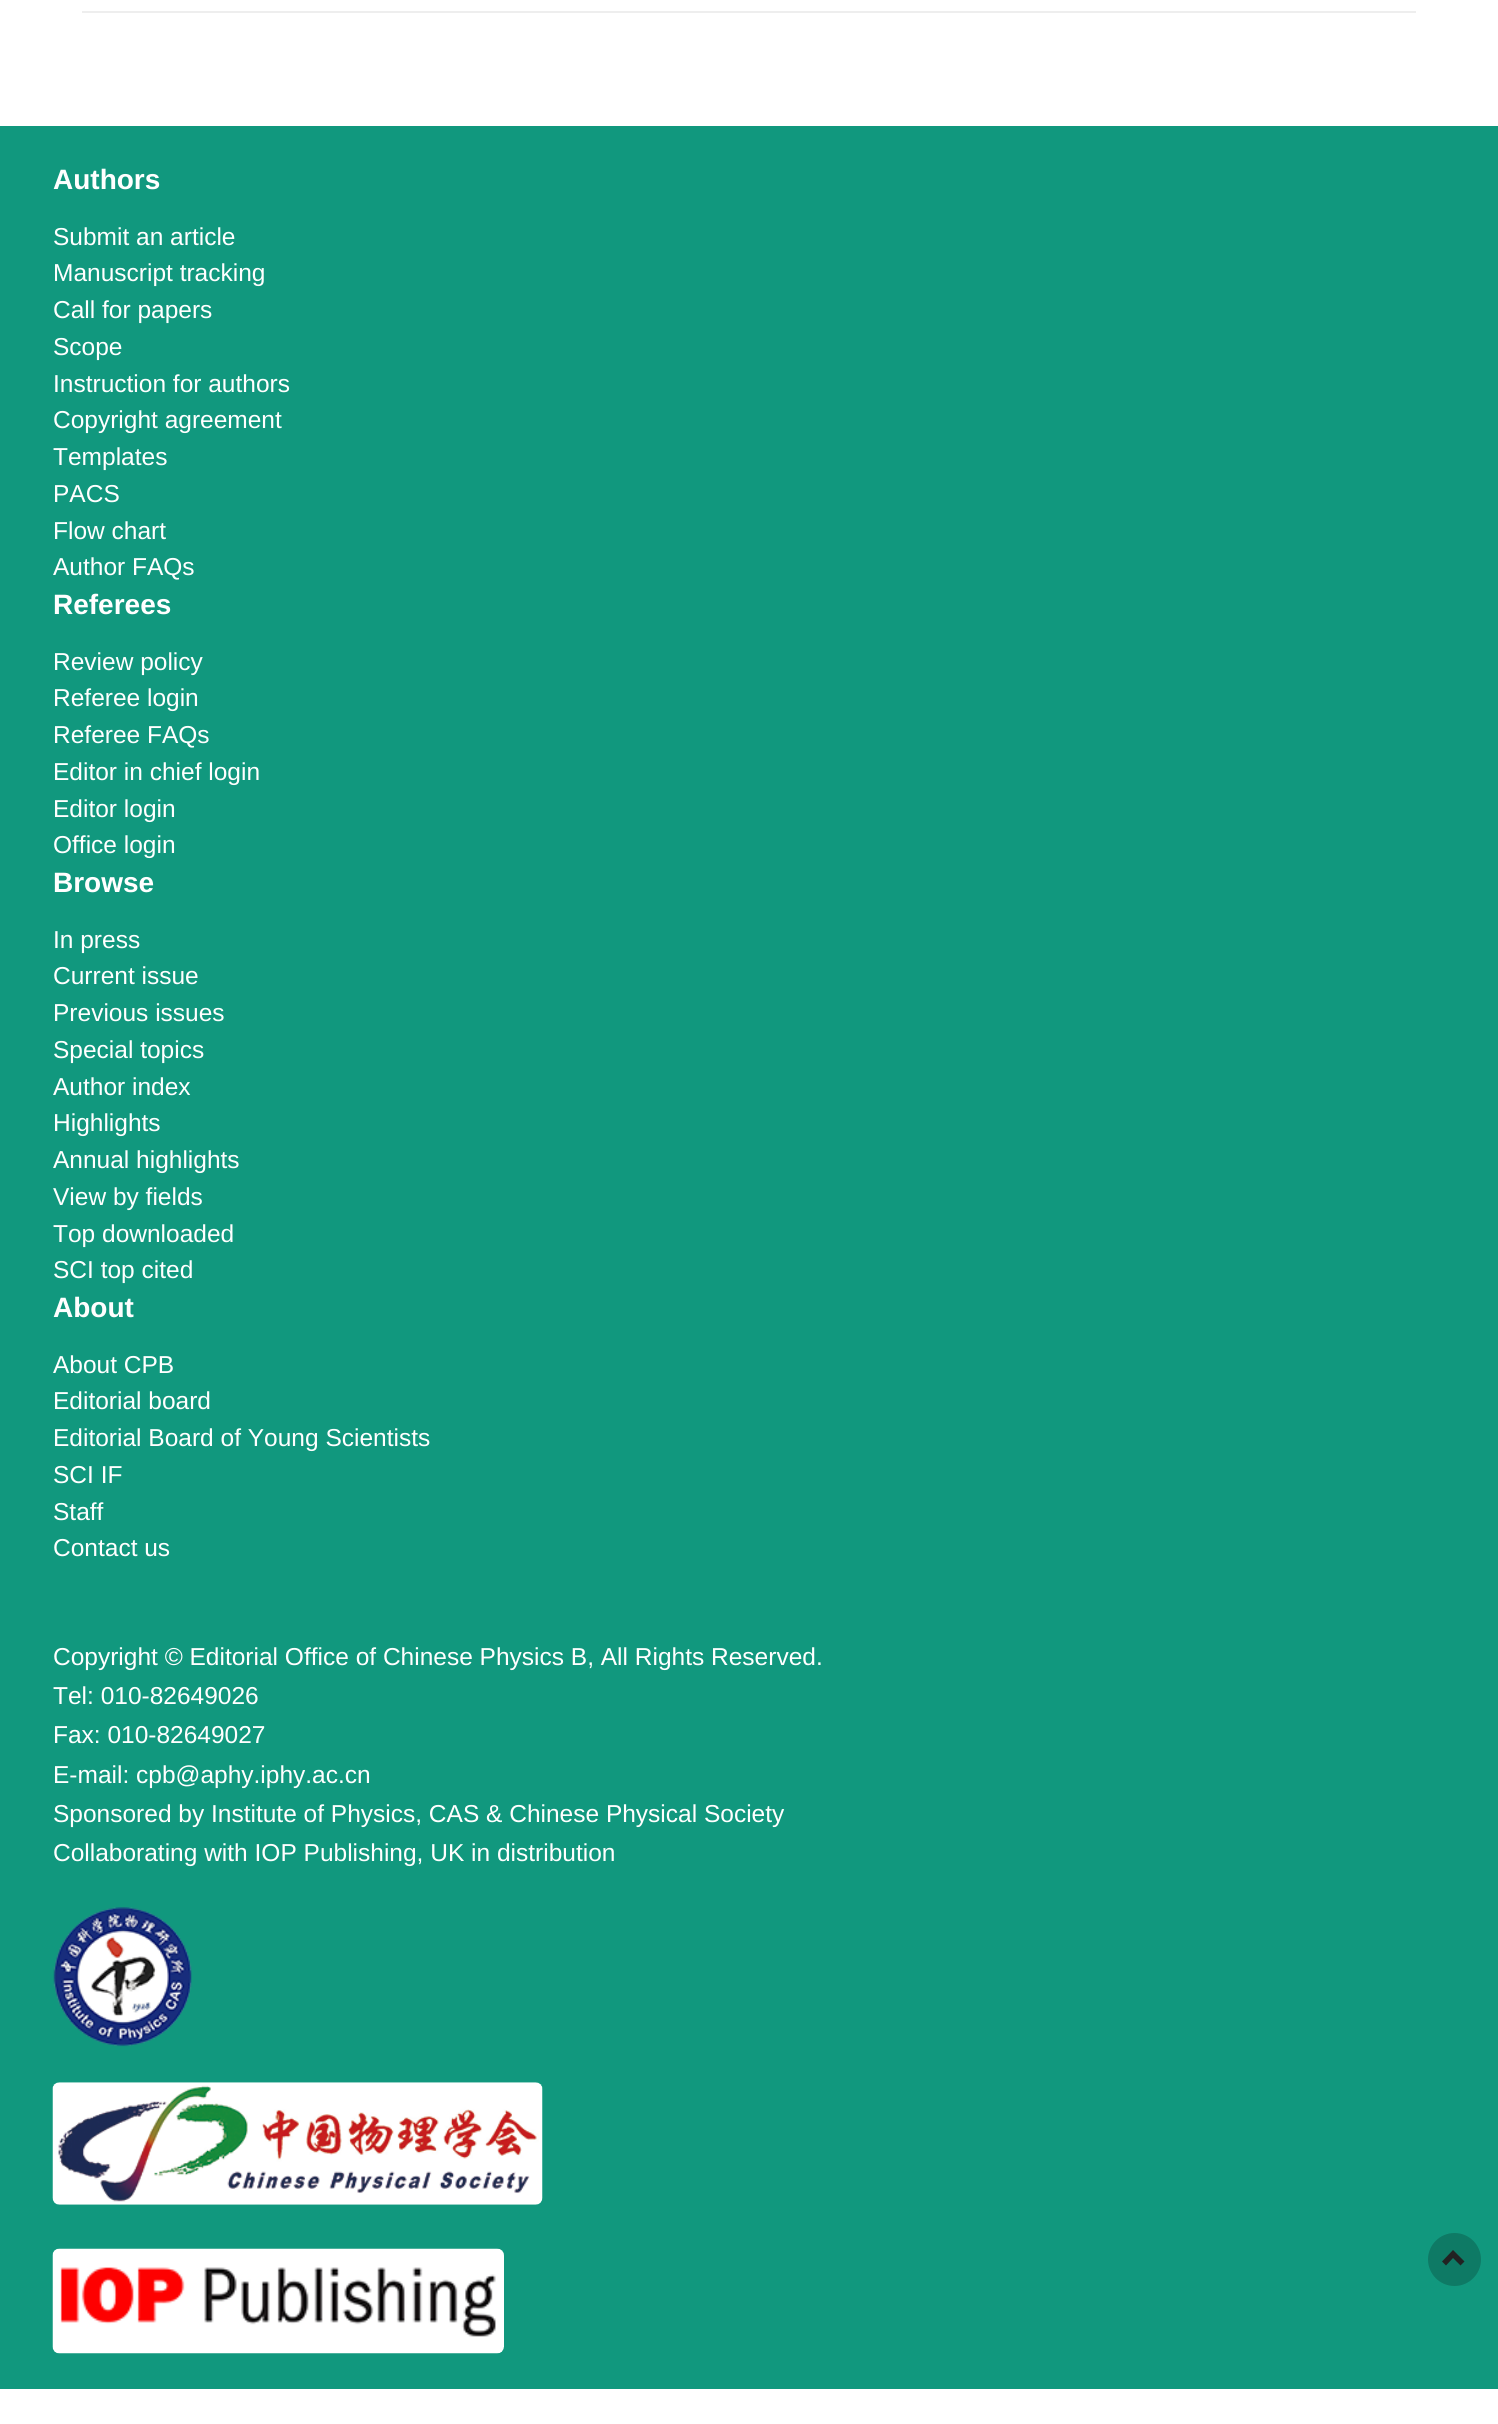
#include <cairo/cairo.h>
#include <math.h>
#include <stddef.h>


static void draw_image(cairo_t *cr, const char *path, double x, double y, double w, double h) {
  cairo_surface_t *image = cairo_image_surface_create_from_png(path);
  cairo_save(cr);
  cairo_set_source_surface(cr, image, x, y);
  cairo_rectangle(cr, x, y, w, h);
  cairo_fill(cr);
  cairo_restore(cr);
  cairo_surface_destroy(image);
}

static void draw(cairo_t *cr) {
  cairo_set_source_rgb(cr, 1, 1, 1);
  cairo_paint(cr);
  cairo_set_source_rgb(cr, 238 / 255.0, 238 / 255.0, 238 / 255.0);
  cairo_rectangle(cr, 82, 11, 1334, 2);
  cairo_fill(cr);
  cairo_set_source_rgb(cr, 17 / 255.0, 152 / 255.0, 126 / 255.0);
  cairo_rectangle(cr, 0, 126, 1498, 2263);
  cairo_fill(cr);
  draw_image(cr, "images/1.png", 53, 1907, 139, 140);
  draw_image(cr, "images/2.png", 52, 2082, 491, 123);
  draw_image(cr, "images/3.png", 52, 2248, 452, 106);
  cairo_set_source_rgb(cr, 14 / 255.0, 122 / 255.0, 101 / 255.0);
  cairo_arc(cr, 1454.5, 2259.5, 26.5, 0, 2 * M_PI);
  cairo_fill(cr);
  cairo_set_source_rgb(cr, 34 / 255.0, 34 / 255.0, 34 / 255.0);
  cairo_new_path(cr);
  cairo_move_to(cr, 1464.5, 2261.5);
  cairo_line_to(cr, 1460.5, 2265.5);
  cairo_line_to(cr, 1453, 2258);
  cairo_line_to(cr, 1446, 2265.5);
  cairo_line_to(cr, 1442, 2261.5);
  cairo_line_to(cr, 1453, 2250);
  cairo_close_path(cr);
  cairo_fill(cr);
  cairo_select_font_face(cr, "Liberation Sans", CAIRO_FONT_SLANT_NORMAL, CAIRO_FONT_WEIGHT_BOLD);
  cairo_set_font_size(cr, 28);
  cairo_set_source_rgb(cr, 1, 1, 1);
  cairo_move_to(cr, 53, 189);
  cairo_show_text(cr, "Authors");
  cairo_select_font_face(cr, "Liberation Sans", CAIRO_FONT_SLANT_NORMAL, CAIRO_FONT_WEIGHT_NORMAL);
  cairo_set_font_size(cr, 24.5);
  cairo_move_to(cr, 53, 245);
  cairo_show_text(cr, "Submit an article");
  cairo_move_to(cr, 53, 281);
  cairo_show_text(cr, "Manuscript tracking");
  cairo_move_to(cr, 53, 318);
  cairo_show_text(cr, "Call for papers");
  cairo_move_to(cr, 53, 355);
  cairo_show_text(cr, "Scope");
  cairo_move_to(cr, 53, 392);
  cairo_show_text(cr, "Instruction for authors");
  cairo_move_to(cr, 53, 428);
  cairo_show_text(cr, "Copyright agreement");
  cairo_move_to(cr, 53, 465);
  cairo_show_text(cr, "Templates");
  cairo_move_to(cr, 53, 502);
  cairo_show_text(cr, "PACS");
  cairo_move_to(cr, 53, 539);
  cairo_show_text(cr, "Flow chart");
  cairo_move_to(cr, 53, 575);
  cairo_show_text(cr, "Author FAQs");
  cairo_select_font_face(cr, "Liberation Sans", CAIRO_FONT_SLANT_NORMAL, CAIRO_FONT_WEIGHT_BOLD);
  cairo_set_font_size(cr, 28);
  cairo_move_to(cr, 53, 614);
  cairo_show_text(cr, "Referees");
  cairo_select_font_face(cr, "Liberation Sans", CAIRO_FONT_SLANT_NORMAL, CAIRO_FONT_WEIGHT_NORMAL);
  cairo_set_font_size(cr, 24.5);
  cairo_move_to(cr, 53, 670);
  cairo_show_text(cr, "Review policy");
  cairo_move_to(cr, 53, 706);
  cairo_show_text(cr, "Referee login");
  cairo_move_to(cr, 53, 743);
  cairo_show_text(cr, "Referee FAQs");
  cairo_move_to(cr, 53, 780);
  cairo_show_text(cr, "Editor in chief login");
  cairo_move_to(cr, 53, 817);
  cairo_show_text(cr, "Editor login");
  cairo_move_to(cr, 53, 853);
  cairo_show_text(cr, "Office login");
  cairo_select_font_face(cr, "Liberation Sans", CAIRO_FONT_SLANT_NORMAL, CAIRO_FONT_WEIGHT_BOLD);
  cairo_set_font_size(cr, 28);
  cairo_move_to(cr, 53, 892);
  cairo_show_text(cr, "Browse");
  cairo_select_font_face(cr, "Liberation Sans", CAIRO_FONT_SLANT_NORMAL, CAIRO_FONT_WEIGHT_NORMAL);
  cairo_set_font_size(cr, 24.5);
  cairo_move_to(cr, 53, 948);
  cairo_show_text(cr, "In press");
  cairo_move_to(cr, 53, 984);
  cairo_show_text(cr, "Current issue");
  cairo_move_to(cr, 53, 1021);
  cairo_show_text(cr, "Previous issues");
  cairo_move_to(cr, 53, 1058);
  cairo_show_text(cr, "Special topics");
  cairo_move_to(cr, 53, 1095);
  cairo_show_text(cr, "Author index");
  cairo_move_to(cr, 53, 1131);
  cairo_show_text(cr, "Highlights");
  cairo_move_to(cr, 53, 1168);
  cairo_show_text(cr, "Annual highlights");
  cairo_move_to(cr, 53, 1205);
  cairo_show_text(cr, "View by fields");
  cairo_move_to(cr, 53, 1242);
  cairo_show_text(cr, "Top downloaded");
  cairo_move_to(cr, 53, 1278);
  cairo_show_text(cr, "SCI top cited");
  cairo_select_font_face(cr, "Liberation Sans", CAIRO_FONT_SLANT_NORMAL, CAIRO_FONT_WEIGHT_BOLD);
  cairo_set_font_size(cr, 28);
  cairo_move_to(cr, 53, 1317);
  cairo_show_text(cr, "About");
  cairo_select_font_face(cr, "Liberation Sans", CAIRO_FONT_SLANT_NORMAL, CAIRO_FONT_WEIGHT_NORMAL);
  cairo_set_font_size(cr, 24.5);
  cairo_move_to(cr, 53, 1373);
  cairo_show_text(cr, "About CPB");
  cairo_move_to(cr, 53, 1409);
  cairo_show_text(cr, "Editorial board");
  cairo_move_to(cr, 53, 1446);
  cairo_show_text(cr, "Editorial Board of Young Scientists");
  cairo_move_to(cr, 53, 1483);
  cairo_show_text(cr, "SCI IF");
  cairo_move_to(cr, 53, 1520);
  cairo_show_text(cr, "Staff");
  cairo_move_to(cr, 53, 1556);
  cairo_show_text(cr, "Contact us");
  cairo_move_to(cr, 53, 1665);
  cairo_show_text(cr, "Copyright © Editorial Office of Chinese Physics B, All Rights Reserved.");
  cairo_move_to(cr, 53, 1704);
  cairo_show_text(cr, "Tel: 010-82649026");
  cairo_move_to(cr, 53, 1743);
  cairo_show_text(cr, "Fax: 010-82649027");
  cairo_move_to(cr, 53, 1783);
  cairo_show_text(cr, "E-mail: cpb@aphy.iphy.ac.cn");
  cairo_move_to(cr, 53, 1822);
  cairo_show_text(cr, "Sponsored by Institute of Physics, CAS & Chinese Physical Society");
  cairo_move_to(cr, 53, 1861);
  cairo_show_text(cr, "Collaborating with IOP Publishing, UK in distribution");
}

int main(void) {
  cairo_surface_t *surface = cairo_image_surface_create(CAIRO_FORMAT_RGB24, 1498, 2424);
  cairo_t *cr = cairo_create(surface);
  cairo_font_options_t *options = cairo_font_options_create();
  cairo_font_options_set_hint_metrics(options, CAIRO_HINT_METRICS_OFF);
  cairo_font_options_set_hint_style(options, CAIRO_HINT_STYLE_NONE);
  cairo_set_font_options(cr, options);
  cairo_set_miter_limit(cr, 4);
  draw(cr);
  cairo_surface_write_to_png(surface, "out.png");
  cairo_font_options_destroy(options);
  cairo_destroy(cr);
  cairo_surface_destroy(surface);
  return 0;
}
